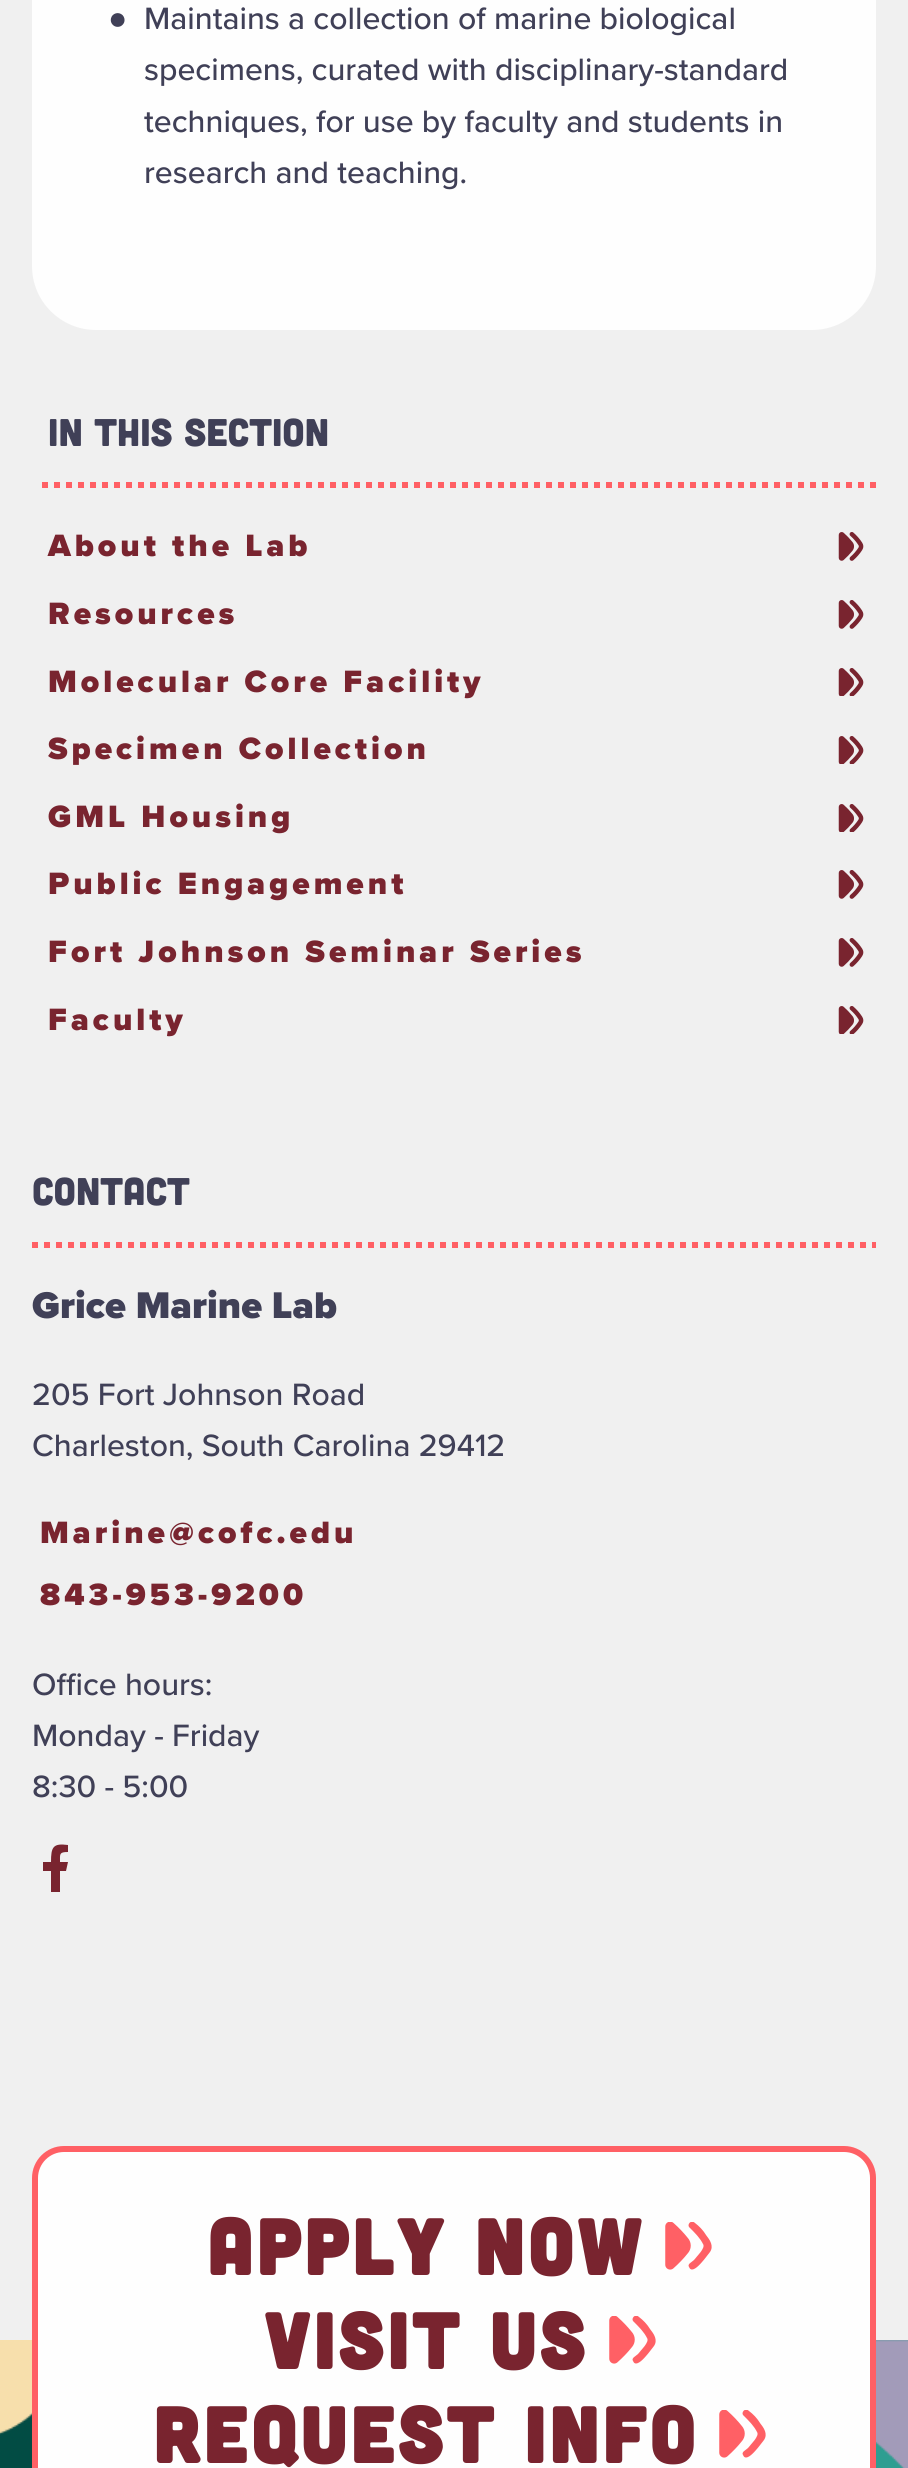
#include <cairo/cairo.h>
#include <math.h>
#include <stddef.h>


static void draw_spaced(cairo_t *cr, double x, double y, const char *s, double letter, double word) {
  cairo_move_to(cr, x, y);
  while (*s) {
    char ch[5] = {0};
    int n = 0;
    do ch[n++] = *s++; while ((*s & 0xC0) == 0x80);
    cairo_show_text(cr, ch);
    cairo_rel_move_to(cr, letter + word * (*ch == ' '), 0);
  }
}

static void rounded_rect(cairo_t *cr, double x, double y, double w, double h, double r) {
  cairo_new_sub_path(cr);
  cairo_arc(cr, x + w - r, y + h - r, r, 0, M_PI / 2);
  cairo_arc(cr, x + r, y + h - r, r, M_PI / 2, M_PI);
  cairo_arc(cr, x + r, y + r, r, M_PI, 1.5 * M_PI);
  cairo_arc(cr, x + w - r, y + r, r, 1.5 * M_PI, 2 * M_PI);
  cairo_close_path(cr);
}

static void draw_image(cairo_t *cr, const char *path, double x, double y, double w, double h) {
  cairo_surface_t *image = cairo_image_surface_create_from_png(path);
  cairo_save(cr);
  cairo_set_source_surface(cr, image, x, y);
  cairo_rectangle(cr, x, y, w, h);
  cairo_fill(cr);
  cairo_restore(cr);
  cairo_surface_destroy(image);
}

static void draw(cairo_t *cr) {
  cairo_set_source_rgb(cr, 240 / 255.0, 240 / 255.0, 240 / 255.0);
  cairo_paint(cr);
  cairo_set_source_rgb(cr, 254 / 255.0, 254 / 255.0, 254 / 255.0);
  rounded_rect(cr, 32, -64, 844, 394, 64);
  cairo_fill(cr);
  cairo_save(cr);
  cairo_rectangle(cr, 32, 380, 844, 710);
  cairo_clip(cr);
  cairo_new_path(cr);
  cairo_move_to(cr, 42, 485);
  cairo_line_to(cr, 886, 485);
  cairo_set_source_rgb(cr, 1, 96 / 255.0, 101 / 255.0);
  cairo_set_line_width(cr, 6);
  cairo_set_dash(cr, (double[]){6, 6}, 2, 0);
  cairo_stroke(cr);
  cairo_restore(cr);
  draw_image(cr, "images/1.png", 838, 532, 16, 29);
  draw_image(cr, "images/2.png", 849, 532, 15, 29);
  draw_image(cr, "images/1.png", 838, 600, 16, 29);
  draw_image(cr, "images/2.png", 849, 600, 15, 29);
  draw_image(cr, "images/3.png", 838, 668, 16, 28);
  draw_image(cr, "images/4.png", 849, 668, 15, 28);
  draw_image(cr, "images/3.png", 838, 736, 16, 28);
  draw_image(cr, "images/4.png", 849, 736, 15, 28);
  draw_image(cr, "images/3.png", 838, 804, 16, 28);
  draw_image(cr, "images/4.png", 849, 804, 15, 28);
  draw_image(cr, "images/1.png", 838, 870, 16, 29);
  draw_image(cr, "images/2.png", 849, 870, 15, 29);
  draw_image(cr, "images/1.png", 838, 938, 16, 29);
  draw_image(cr, "images/2.png", 849, 938, 15, 29);
  draw_image(cr, "images/3.png", 838, 1006, 16, 28);
  draw_image(cr, "images/4.png", 849, 1006, 15, 28);
  cairo_new_path(cr);
  cairo_move_to(cr, 32, 1245);
  cairo_line_to(cr, 876, 1245);
  cairo_set_source_rgb(cr, 1, 96 / 255.0, 101 / 255.0);
  cairo_set_line_width(cr, 6);
  cairo_set_dash(cr, (double[]){6, 6}, 2, 0);
  cairo_stroke(cr);
  cairo_set_source_rgb(cr, 121 / 255.0, 36 / 255.0, 47 / 255.0);
  cairo_new_path(cr);
  cairo_move_to(cr, 60, 1892);
  cairo_line_to(cr, 60, 1871);
  cairo_line_to(cr, 66, 1871);
  cairo_line_to(cr, 68, 1862);
  cairo_line_to(cr, 60, 1862);
  cairo_curve_to(cr, 60, 1854, 59, 1852, 68, 1852);
  cairo_line_to(cr, 68, 1845);
  cairo_curve_to(cr, 53, 1843, 51, 1847, 51, 1862);
  cairo_line_to(cr, 43, 1862);
  cairo_line_to(cr, 43, 1871);
  cairo_line_to(cr, 51, 1871);
  cairo_line_to(cr, 51, 1892);
  cairo_close_path(cr);
  cairo_fill(cr);
  draw_image(cr, "images/5.png", 0, 2340, 908, 128);
  cairo_set_source_rgb(cr, 254 / 255.0, 254 / 255.0, 254 / 255.0);
  rounded_rect(cr, 35, 2149, 838, 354, 29);
  cairo_fill_preserve(cr);
  cairo_set_source_rgb(cr, 1, 96 / 255.0, 101 / 255.0);
  cairo_set_dash(cr, NULL, 0, 0);
  cairo_stroke(cr);
  draw_image(cr, "images/6.png", 665, 2222, 26, 48);
  cairo_save(cr);
  cairo_rectangle(cr, 686, 2222, 28, 48);
  cairo_clip(cr);
  cairo_new_path(cr);
  cairo_move_to(cr, 690, 2228);
  cairo_curve_to(cr, 686, 2225, 691, 2219, 695, 2223);
  cairo_curve_to(cr, 699, 2226, 703, 2230, 706, 2235);
  cairo_curve_to(cr, 710, 2240, 714, 2246, 710, 2252);
  cairo_curve_to(cr, 708, 2254, 693, 2277, 689, 2267);
  cairo_curve_to(cr, 687, 2264, 692, 2262, 694, 2260);
  cairo_curve_to(cr, 696, 2257, 706, 2248, 703, 2244);
  cairo_curve_to(cr, 700, 2238, 695, 2233, 690, 2228);
  cairo_close_path(cr);
  cairo_fill(cr);
  cairo_restore(cr);
  draw_image(cr, "images/6.png", 609, 2316, 26, 48);
  cairo_save(cr);
  cairo_rectangle(cr, 630, 2316, 28, 48);
  cairo_clip(cr);
  cairo_new_path(cr);
  cairo_move_to(cr, 634, 2322);
  cairo_curve_to(cr, 630, 2319, 635, 2313, 639, 2317);
  cairo_curve_to(cr, 643, 2320, 647, 2324, 650, 2329);
  cairo_curve_to(cr, 654, 2334, 658, 2340, 654, 2346);
  cairo_curve_to(cr, 652, 2348, 637, 2371, 633, 2361);
  cairo_curve_to(cr, 631, 2358, 636, 2356, 638, 2354);
  cairo_curve_to(cr, 640, 2351, 650, 2342, 647, 2338);
  cairo_curve_to(cr, 644, 2332, 639, 2327, 634, 2322);
  cairo_close_path(cr);
  cairo_fill(cr);
  cairo_restore(cr);
  draw_image(cr, "images/6.png", 719, 2410, 26, 48);
  cairo_save(cr);
  cairo_rectangle(cr, 740, 2410, 28, 48);
  cairo_clip(cr);
  cairo_new_path(cr);
  cairo_move_to(cr, 744, 2416);
  cairo_curve_to(cr, 740, 2413, 745, 2407, 749, 2411);
  cairo_curve_to(cr, 753, 2414, 757, 2418, 760, 2423);
  cairo_curve_to(cr, 764, 2428, 768, 2434, 764, 2440);
  cairo_curve_to(cr, 762, 2442, 747, 2465, 743, 2455);
  cairo_curve_to(cr, 741, 2452, 746, 2450, 748, 2448);
  cairo_curve_to(cr, 750, 2445, 760, 2436, 757, 2432);
  cairo_curve_to(cr, 754, 2426, 749, 2421, 744, 2416);
  cairo_close_path(cr);
  cairo_fill(cr);
  cairo_restore(cr);
  cairo_select_font_face(cr, "Liberation Sans", CAIRO_FONT_SLANT_NORMAL, CAIRO_FONT_WEIGHT_NORMAL);
  cairo_set_font_size(cr, 32);
  cairo_set_source_rgb(cr, 64 / 255.0, 64 / 255.0, 87 / 255.0);
  cairo_move_to(cr, 108, 29);
  cairo_show_text(cr, "●");
  cairo_select_font_face(cr, "Proxima Nova Medium", CAIRO_FONT_SLANT_NORMAL, CAIRO_FONT_WEIGHT_NORMAL);
  cairo_move_to(cr, 144, 29);
  cairo_show_text(cr, "Maintains a collection of marine biological");
  cairo_move_to(cr, 144, 80);
  cairo_show_text(cr, "specimens, curated with disciplinary-standard");
  cairo_move_to(cr, 144, 132);
  cairo_show_text(cr, "techniques, for use by faculty and students in");
  cairo_move_to(cr, 144, 183);
  cairo_show_text(cr, "research and teaching.");
  cairo_select_font_face(cr, "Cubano", CAIRO_FONT_SLANT_NORMAL, CAIRO_FONT_WEIGHT_NORMAL);
  cairo_set_font_size(cr, 38.5);
  cairo_move_to(cr, 48, 446);
  cairo_show_text(cr, "In This Section");
  cairo_select_font_face(cr, "Proxima Nova Black", CAIRO_FONT_SLANT_NORMAL, CAIRO_FONT_WEIGHT_NORMAL);
  cairo_set_font_size(cr, 32);
  cairo_set_source_rgb(cr, 121 / 255.0, 36 / 255.0, 47 / 255.0);
  draw_spaced(cr, 48, 556, "About the Lab", 4, 0);
  draw_spaced(cr, 48, 624, "Resources", 4, 0);
  draw_spaced(cr, 48, 692, "Molecular Core Facility", 4, 0);
  draw_spaced(cr, 48, 759, "Specimen Collection", 4, 0);
  draw_spaced(cr, 48, 827, "GML Housing", 4, 0);
  draw_spaced(cr, 48, 894, "Public Engagement", 4, 0);
  draw_spaced(cr, 48, 962, "Fort Johnson Seminar Series", 4, 0);
  draw_spaced(cr, 48, 1030, "Faculty", 4, 0);
  cairo_select_font_face(cr, "Cubano", CAIRO_FONT_SLANT_NORMAL, CAIRO_FONT_WEIGHT_NORMAL);
  cairo_set_font_size(cr, 38.5);
  cairo_set_source_rgb(cr, 64 / 255.0, 64 / 255.0, 87 / 255.0);
  cairo_move_to(cr, 32, 1205);
  cairo_show_text(cr, "Contact");
  cairo_select_font_face(cr, "Proxima Nova Black", CAIRO_FONT_SLANT_NORMAL, CAIRO_FONT_WEIGHT_NORMAL);
  cairo_move_to(cr, 32, 1318);
  cairo_show_text(cr, "Grice Marine Lab");
  cairo_select_font_face(cr, "Proxima Nova Medium", CAIRO_FONT_SLANT_NORMAL, CAIRO_FONT_WEIGHT_NORMAL);
  cairo_set_font_size(cr, 32);
  cairo_move_to(cr, 32, 1405);
  cairo_show_text(cr, "205 Fort Johnson Road");
  cairo_move_to(cr, 32, 1456);
  cairo_show_text(cr, "Charleston, South Carolina 29412");
  cairo_select_font_face(cr, "Proxima Nova Black", CAIRO_FONT_SLANT_NORMAL, CAIRO_FONT_WEIGHT_NORMAL);
  cairo_set_source_rgb(cr, 121 / 255.0, 36 / 255.0, 47 / 255.0);
  draw_spaced(cr, 40, 1543, "Marine@cofc.edu", 4, 0);
  draw_spaced(cr, 40, 1605, "843-953-9200", 4, 0);
  cairo_select_font_face(cr, "Proxima Nova Medium", CAIRO_FONT_SLANT_NORMAL, CAIRO_FONT_WEIGHT_NORMAL);
  cairo_set_source_rgb(cr, 64 / 255.0, 64 / 255.0, 87 / 255.0);
  cairo_move_to(cr, 32, 1695);
  cairo_show_text(cr, "Office hours:");
  cairo_move_to(cr, 32, 1746);
  cairo_show_text(cr, "Monday - Friday");
  cairo_move_to(cr, 32, 1797);
  cairo_show_text(cr, "8:30 - 5:00");
  cairo_select_font_face(cr, "Cubano", CAIRO_FONT_SLANT_NORMAL, CAIRO_FONT_WEIGHT_BOLD);
  cairo_set_font_size(cr, 78);
  cairo_set_source_rgb(cr, 121 / 255.0, 36 / 255.0, 47 / 255.0);
  draw_spaced(cr, 207, 2275, "APPLY NOW", 4, 0);
  draw_spaced(cr, 264, 2369, "VISIT US", 4, 0);
  draw_spaced(cr, 153, 2463, "REQUEST INFO", 4, 0);
}

int main(void) {
  cairo_surface_t *surface = cairo_image_surface_create(CAIRO_FORMAT_RGB24, 908, 2468);
  cairo_t *cr = cairo_create(surface);
  cairo_font_options_t *options = cairo_font_options_create();
  cairo_font_options_set_hint_metrics(options, CAIRO_HINT_METRICS_OFF);
  cairo_font_options_set_hint_style(options, CAIRO_HINT_STYLE_NONE);
  cairo_set_font_options(cr, options);
  cairo_set_miter_limit(cr, 4);
  draw(cr);
  cairo_surface_write_to_png(surface, "out.png");
  cairo_font_options_destroy(options);
  cairo_destroy(cr);
  cairo_surface_destroy(surface);
  return 0;
}
